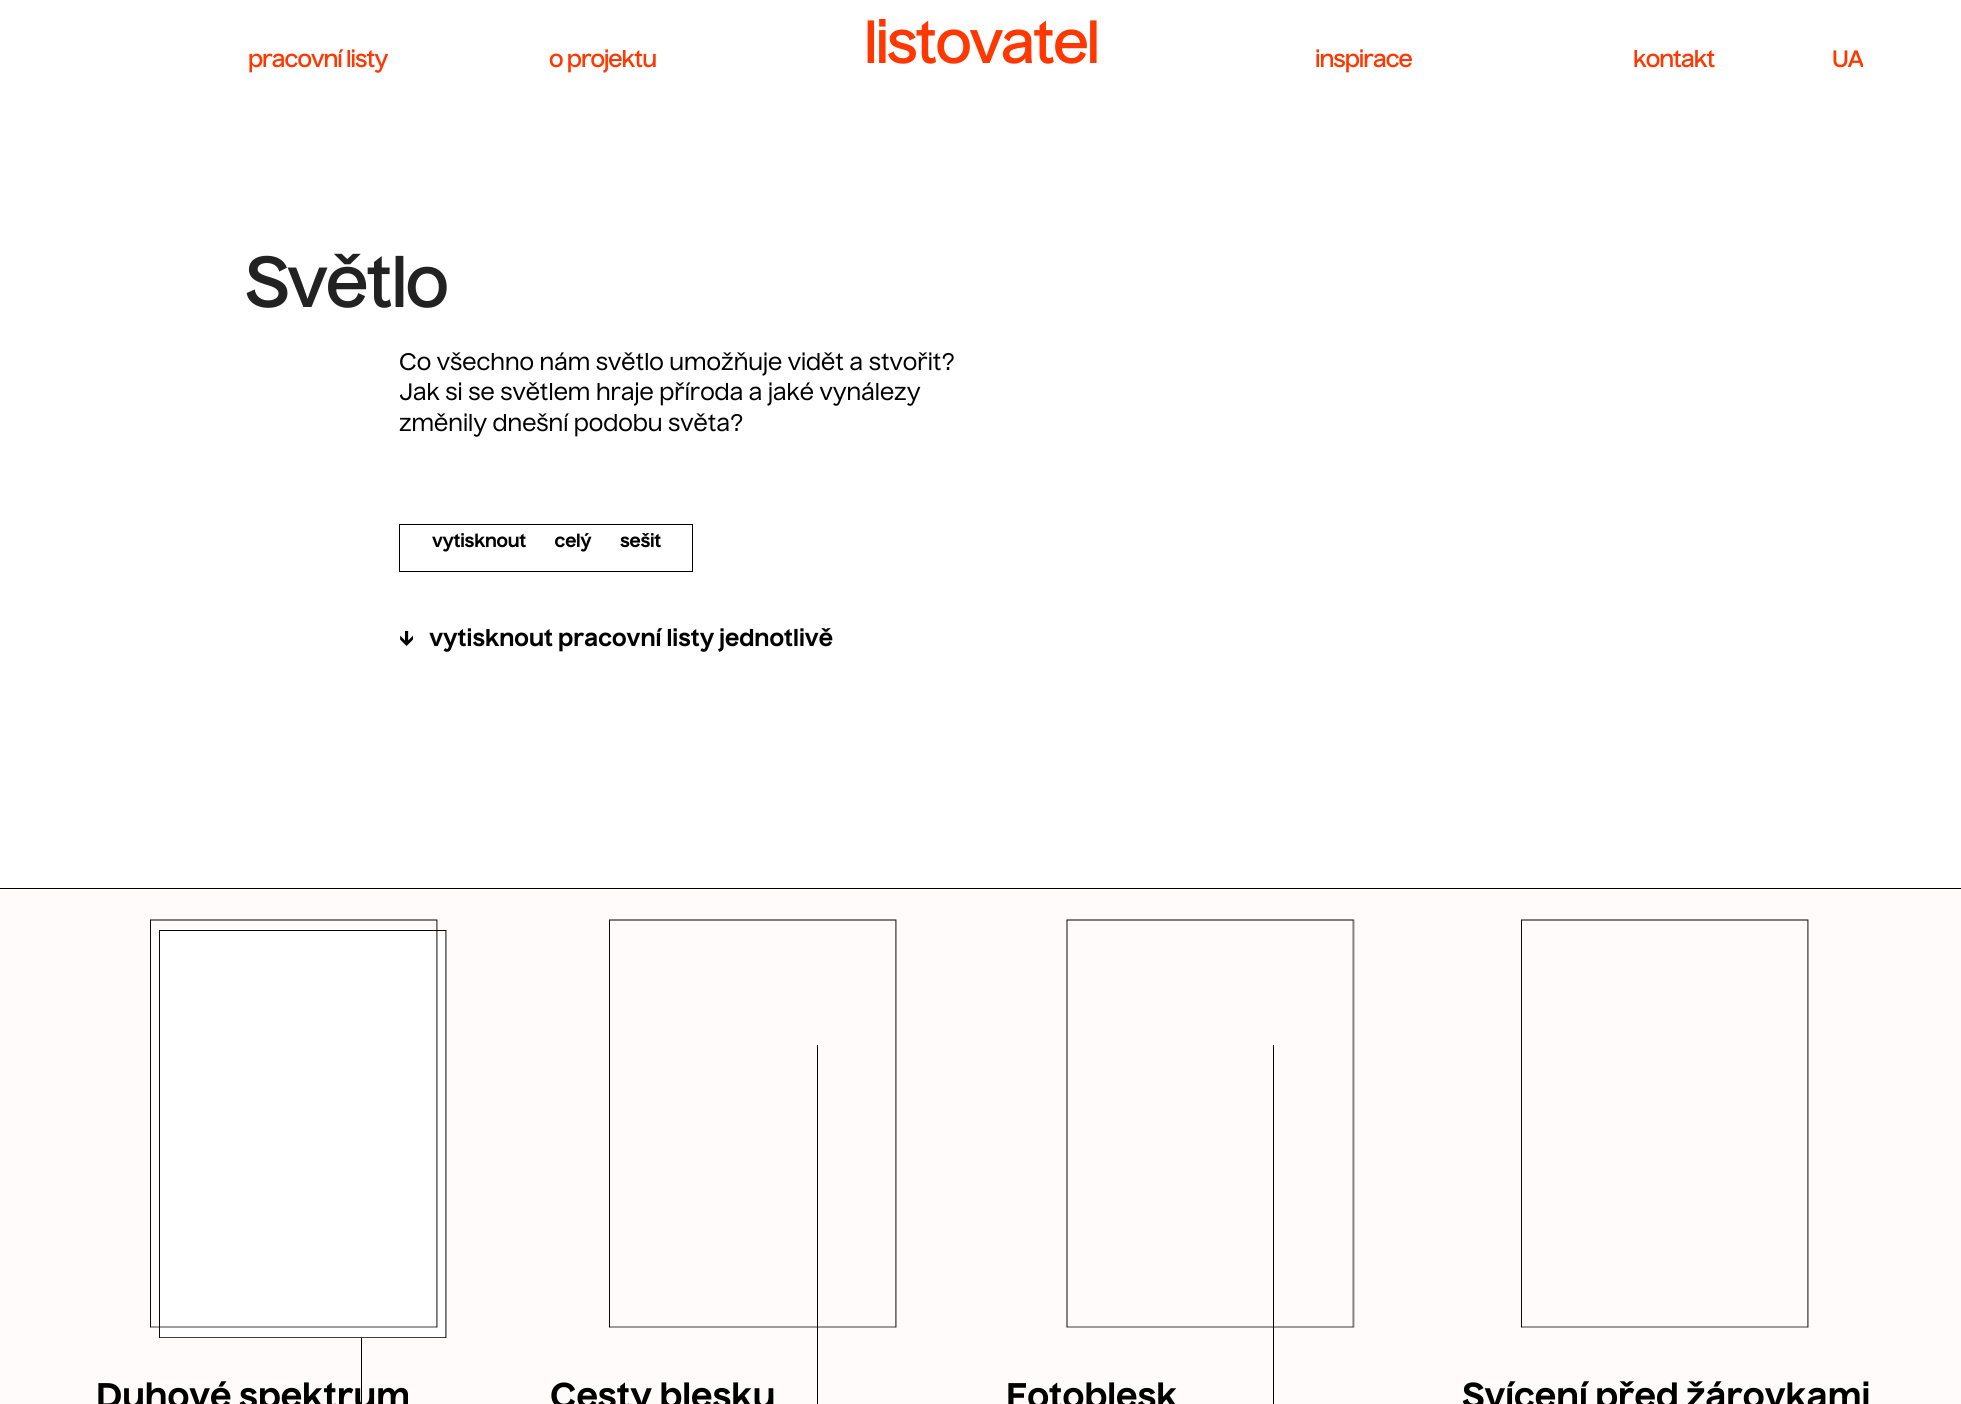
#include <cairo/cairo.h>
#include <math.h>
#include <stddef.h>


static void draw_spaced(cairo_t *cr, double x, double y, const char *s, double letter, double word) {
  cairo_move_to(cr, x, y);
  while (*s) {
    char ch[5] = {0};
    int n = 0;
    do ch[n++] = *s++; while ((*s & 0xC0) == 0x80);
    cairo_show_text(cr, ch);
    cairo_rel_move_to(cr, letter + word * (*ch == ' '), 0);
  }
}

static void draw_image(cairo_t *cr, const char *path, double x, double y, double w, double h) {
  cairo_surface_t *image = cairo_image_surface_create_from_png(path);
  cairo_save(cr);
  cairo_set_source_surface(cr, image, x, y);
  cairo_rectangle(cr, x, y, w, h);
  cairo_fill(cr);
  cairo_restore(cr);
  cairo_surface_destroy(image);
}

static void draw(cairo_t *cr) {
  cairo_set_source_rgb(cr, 1, 1, 1);
  cairo_paint(cr);
  cairo_rectangle(cr, 399.5, 524.5, 293, 47);
  cairo_set_source_rgb(cr, 0, 0, 0);
  cairo_set_line_width(cr, 1);
  cairo_stroke(cr);
  cairo_rectangle(cr, 0, 888, 1961, 1);
  cairo_fill(cr);
  cairo_set_source_rgb(cr, 1, 251 / 255.0, 250 / 255.0);
  cairo_rectangle(cr, 0, 891, 1961, 513);
  cairo_fill(cr);
  cairo_set_source_rgb(cr, 0, 0, 0);
  cairo_rectangle(cr, 361, 1337, 1, 67);
  cairo_fill(cr);
  draw_image(cr, "images/5.png", 159, 930, 288, 408);
  draw_image(cr, "images/1.png", 150, 919, 288, 409);
  cairo_rectangle(cr, 817, 1045, 1, 359);
  cairo_fill(cr);
  draw_image(cr, "images/2.png", 609, 919, 288, 409);
  cairo_rectangle(cr, 1273, 1045, 1, 359);
  cairo_fill(cr);
  draw_image(cr, "images/3.png", 1066, 919, 289, 409);
  draw_image(cr, "images/4.png", 1521, 919, 288, 409);
  cairo_select_font_face(cr, "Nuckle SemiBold", CAIRO_FONT_SLANT_NORMAL, CAIRO_FONT_WEIGHT_NORMAL);
  cairo_set_font_size(cr, 23);
  cairo_set_source_rgb(cr, 1, 55 / 255.0, 0);
  draw_spaced(cr, 248, 67, "pracovní listy", -1, 0);
  draw_spaced(cr, 549, 67, "o projektu", -1, 0);
  cairo_set_font_size(cr, 57.5);
  draw_spaced(cr, 864, 63, "listovatel", -2.25, 0);
  cairo_set_font_size(cr, 23);
  draw_spaced(cr, 1315, 67, "inspirace", -1, 0);
  draw_spaced(cr, 1633, 67, "kontakt", -1, 0);
  cairo_save(cr);
  cairo_rectangle(cr, 1739, 41, 124, 45);
  cairo_clip(cr);
  draw_spaced(cr, 1832, 67, "UA", -1, 0);
  cairo_restore(cr);
  cairo_set_font_size(cr, 69);
  cairo_set_source_rgb(cr, 34 / 255.0, 34 / 255.0, 34 / 255.0);
  draw_spaced(cr, 245, 307, "Světlo", -2, 0);
  cairo_select_font_face(cr, "Nuckle Medium", CAIRO_FONT_SLANT_NORMAL, CAIRO_FONT_WEIGHT_NORMAL);
  cairo_set_font_size(cr, 23);
  cairo_set_source_rgb(cr, 0, 0, 0);
  cairo_move_to(cr, 399, 370);
  cairo_show_text(cr, "Co všechno nám světlo umožňuje vidět a stvořit?");
  cairo_move_to(cr, 399, 400);
  cairo_show_text(cr, "Jak si se světlem hraje příroda a jaké vynálezy");
  cairo_move_to(cr, 399, 431);
  cairo_show_text(cr, "změnily dnešní podobu světa?");
  cairo_select_font_face(cr, "Nuckle", CAIRO_FONT_SLANT_NORMAL, CAIRO_FONT_WEIGHT_BOLD);
  cairo_set_font_size(cr, 18);
  draw_spaced(cr, 432, 547, "vytisknout celý sešit", -0.3, 25);
  cairo_set_font_size(cr, 23);
  cairo_move_to(cr, 399, 646);
  cairo_show_text(cr, "↓   vytisknout pracovní listy jednotlivě");
  cairo_set_font_size(cr, 34.5);
  cairo_move_to(cr, 96, 1408);
  cairo_show_text(cr, "Duhové spektrum");
  cairo_move_to(cr, 550, 1408);
  cairo_show_text(cr, "Cesty blesku");
  cairo_move_to(cr, 1006, 1408);
  cairo_show_text(cr, "Fotoblesk");
  cairo_move_to(cr, 1462, 1408);
  cairo_show_text(cr, "Svícení před žárovkami");
}

int main(void) {
  cairo_surface_t *surface = cairo_image_surface_create(CAIRO_FORMAT_RGB24, 1961, 1404);
  cairo_t *cr = cairo_create(surface);
  cairo_font_options_t *options = cairo_font_options_create();
  cairo_font_options_set_hint_metrics(options, CAIRO_HINT_METRICS_OFF);
  cairo_font_options_set_hint_style(options, CAIRO_HINT_STYLE_NONE);
  cairo_set_font_options(cr, options);
  cairo_set_miter_limit(cr, 4);
  draw(cr);
  cairo_surface_write_to_png(surface, "out.png");
  cairo_font_options_destroy(options);
  cairo_destroy(cr);
  cairo_surface_destroy(surface);
  return 0;
}
